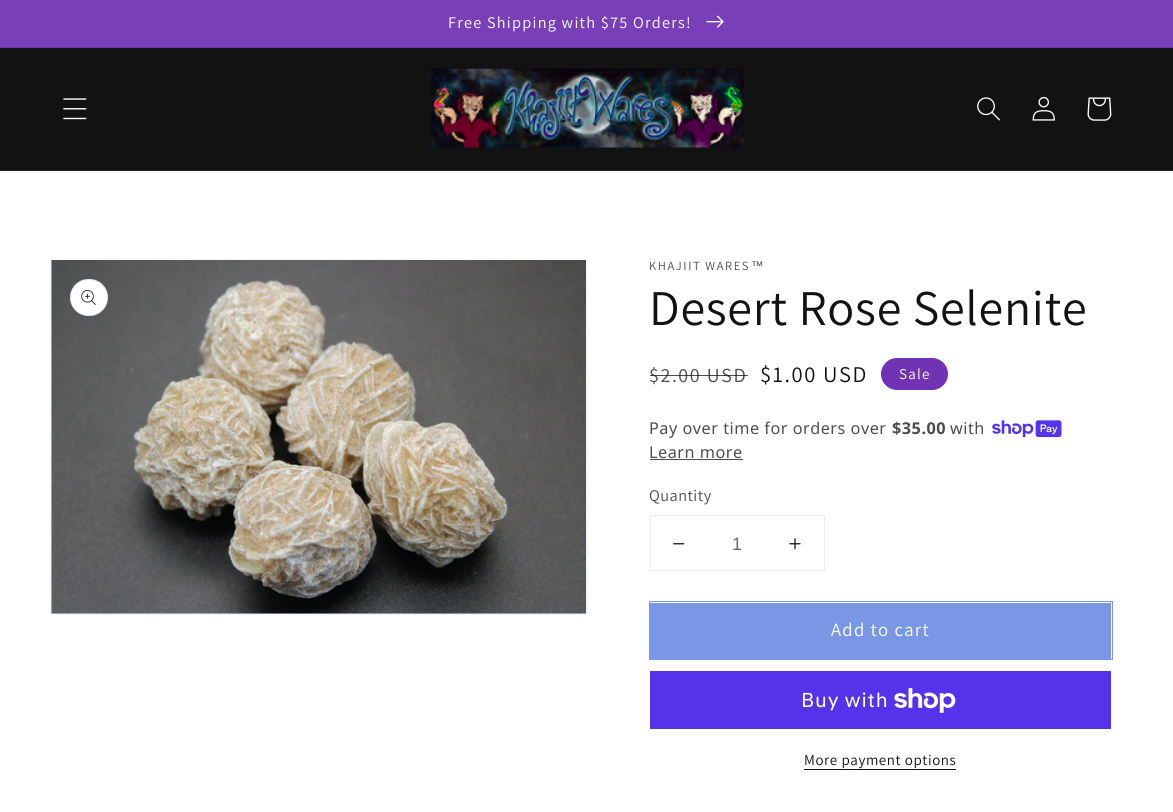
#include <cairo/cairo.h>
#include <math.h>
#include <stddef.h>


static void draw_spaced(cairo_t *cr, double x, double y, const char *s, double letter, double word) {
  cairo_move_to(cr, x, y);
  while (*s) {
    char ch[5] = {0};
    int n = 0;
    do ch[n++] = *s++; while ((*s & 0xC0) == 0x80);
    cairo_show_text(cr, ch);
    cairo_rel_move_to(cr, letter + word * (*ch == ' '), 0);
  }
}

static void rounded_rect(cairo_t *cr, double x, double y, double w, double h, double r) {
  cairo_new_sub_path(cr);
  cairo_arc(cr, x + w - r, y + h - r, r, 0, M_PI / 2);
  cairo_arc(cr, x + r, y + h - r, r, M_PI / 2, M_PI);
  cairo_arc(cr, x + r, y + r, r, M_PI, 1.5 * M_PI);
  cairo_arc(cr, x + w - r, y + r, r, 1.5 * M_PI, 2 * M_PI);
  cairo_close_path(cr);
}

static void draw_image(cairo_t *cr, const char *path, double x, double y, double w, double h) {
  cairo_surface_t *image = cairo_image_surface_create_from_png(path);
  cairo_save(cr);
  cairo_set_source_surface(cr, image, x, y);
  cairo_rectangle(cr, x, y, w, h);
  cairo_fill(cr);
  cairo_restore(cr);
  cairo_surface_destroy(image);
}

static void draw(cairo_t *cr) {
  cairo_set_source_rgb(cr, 1, 1, 1);
  cairo_paint(cr);
  cairo_set_source_rgb(cr, 112 / 255.0, 51 / 255.0, 180 / 255.0);
  cairo_rectangle(cr, 0, 47, 1173, 1);
  cairo_fill(cr);
  cairo_set_source_rgb(cr, 123 / 255.0, 67 / 255.0, 186 / 255.0);
  cairo_rectangle(cr, 0, 46, 1173, 1);
  cairo_fill(cr);
  cairo_set_source_rgb(cr, 121 / 255.0, 63 / 255.0, 185 / 255.0);
  cairo_rectangle(cr, 0, 0, 1173, 46);
  cairo_fill(cr);
  draw_image(cr, "images/1.png", 706, 15, 18, 13);
  cairo_set_source_rgb(cr, 18 / 255.0, 18 / 255.0, 18 / 255.0);
  cairo_rectangle(cr, 0, 48, 1173, 122);
  cairo_fill(cr);
  cairo_set_source_rgb(cr, 37 / 255.0, 37 / 255.0, 37 / 255.0);
  cairo_rectangle(cr, 0, 170, 1173, 1);
  cairo_fill(cr);
  draw_image(cr, "images/2.png", 63, 98, 24, 22);
  draw_image(cr, "images/3.png", 431, 68, 313, 80);
  draw_image(cr, "images/4.png", 977, 97, 23, 24);
  draw_image(cr, "images/5.png", 1032, 96, 23, 25);
  draw_image(cr, "images/6.png", 1087, 97, 25, 24);
  cairo_rectangle(cr, 50.5, 259.5, 537, 355);
  cairo_set_source_rgb(cr, 246 / 255.0, 246 / 255.0, 246 / 255.0);
  cairo_set_line_width(cr, 1);
  cairo_stroke(cr);
  draw_image(cr, "images/7.png", 51, 260, 536, 354);
  cairo_set_source_rgb(cr, 1, 1, 1);
  rounded_rect(cr, 70, 279, 38, 37, 18.5);
  cairo_fill(cr);
  rounded_rect(cr, 70.5, 279.5, 37, 36, 18);
  cairo_set_source_rgba(cr, 18 / 255.0, 18 / 255.0, 18 / 255.0, 0.1);
  cairo_stroke(cr);
  draw_image(cr, "images/8.png", 81, 290, 15, 15);
  cairo_set_source_rgb(cr, 112 / 255.0, 51 / 255.0, 180 / 255.0);
  rounded_rect(cr, 881.5, 358.5, 66, 31, 15.5);
  cairo_fill_preserve(cr);
  cairo_stroke(cr);
  draw_image(cr, "images/9.png", 992, 420, 70, 18);
  cairo_set_source_rgb(cr, 77 / 255.0, 77 / 255.0, 77 / 255.0);
  cairo_rectangle(cr, 650, 459, 93, 1);
  cairo_fill(cr);
  cairo_rectangle(cr, 650.5, 515.5, 174, 55);
  cairo_set_source_rgb(cr, 236 / 255.0, 236 / 255.0, 236 / 255.0);
  cairo_stroke(cr);
  draw_image(cr, "images/10.png", 673, 543, 12, 2);
  draw_image(cr, "images/11.png", 789, 538, 12, 12);
  cairo_rectangle(cr, 649.5, 601.5, 463, 58);
  cairo_set_source_rgb(cr, 121 / 255.0, 151 / 255.0, 228 / 255.0);
  cairo_stroke(cr);
  cairo_rectangle(cr, 650, 603, 461, 56);
  cairo_fill(cr);
  cairo_set_source_rgb(cr, 84 / 255.0, 51 / 255.0, 235 / 255.0);
  cairo_rectangle(cr, 650, 671, 461, 58);
  cairo_fill(cr);
  draw_image(cr, "images/12.png", 894, 688, 62, 25);
  cairo_set_source_rgb(cr, 18 / 255.0, 18 / 255.0, 18 / 255.0);
  cairo_rectangle(cr, 804, 769, 152, 1);
  cairo_fill(cr);
  cairo_select_font_face(cr, "Assistant", CAIRO_FONT_SLANT_NORMAL, CAIRO_FONT_WEIGHT_NORMAL);
  cairo_set_font_size(cr, 16.25);
  cairo_set_source_rgb(cr, 1, 1, 1);
  draw_spaced(cr, 448, 28, "Free Shipping with $75 Orders!", 1.25, 0);
  cairo_set_font_size(cr, 12.5);
  cairo_set_source_rgb(cr, 77 / 255.0, 77 / 255.0, 77 / 255.0);
  draw_spaced(cr, 649, 270, "KHAJIIT WARES", 1.6, 0);
  cairo_select_font_face(cr, "Liberation Sans", CAIRO_FONT_SLANT_NORMAL, CAIRO_FONT_WEIGHT_NORMAL);
  draw_spaced(cr, 751, 270, "™", 1.6, 0);
  cairo_select_font_face(cr, "Assistant", CAIRO_FONT_SLANT_NORMAL, CAIRO_FONT_WEIGHT_NORMAL);
  cairo_set_font_size(cr, 50);
  cairo_set_source_rgb(cr, 18 / 255.0, 18 / 255.0, 18 / 255.0);
  draw_spaced(cr, 649, 325, "Desert Rose Selenite", 0.75, 0);
  cairo_set_font_size(cr, 20);
  cairo_set_source_rgb(cr, 77 / 255.0, 77 / 255.0, 77 / 255.0);
  draw_spaced(cr, 649, 382, "$2.00 USD", 1.6, 0);
  cairo_set_source_rgba(cr, 18 / 255.0, 18 / 255.0, 18 / 255.0, 0.75);
  cairo_rectangle(cr, 650, 375, 98, 1);
  cairo_fill(cr);
  cairo_set_font_size(cr, 22.5);
  cairo_set_source_rgb(cr, 18 / 255.0, 18 / 255.0, 18 / 255.0);
  draw_spaced(cr, 760, 382, "$1.00 USD", 1.6, 0);
  cairo_set_font_size(cr, 15);
  cairo_set_source_rgb(cr, 1, 1, 1);
  draw_spaced(cr, 899, 379, "Sale", 1.25, 0);
  cairo_select_font_face(cr, "Noto Sans", CAIRO_FONT_SLANT_NORMAL, CAIRO_FONT_WEIGHT_NORMAL);
  cairo_set_font_size(cr, 16.25);
  cairo_set_source_rgb(cr, 77 / 255.0, 77 / 255.0, 77 / 255.0);
  draw_spaced(cr, 649, 434, "Pay over time for orders over", 0.5, 0);
  cairo_select_font_face(cr, "Noto Sans", CAIRO_FONT_SLANT_NORMAL, CAIRO_FONT_WEIGHT_BOLD);
  draw_spaced(cr, 892, 434, "$35.00", 0.5, 0);
  cairo_select_font_face(cr, "Noto Sans", CAIRO_FONT_SLANT_NORMAL, CAIRO_FONT_WEIGHT_NORMAL);
  draw_spaced(cr, 950, 434, "with", 0.5, 0);
  draw_spaced(cr, 649, 458, "Learn more", 0.5, 0);
  cairo_select_font_face(cr, "Assistant", CAIRO_FONT_SLANT_NORMAL, CAIRO_FONT_WEIGHT_NORMAL);
  draw_spaced(cr, 649, 501, "Quantity", 0.5, 0);
  cairo_select_font_face(cr, "Liberation Sans", CAIRO_FONT_SLANT_NORMAL, CAIRO_FONT_WEIGHT_NORMAL);
  cairo_set_font_size(cr, 18);
  cairo_set_source_rgb(cr, 104 / 255.0, 104 / 255.0, 104 / 255.0);
  cairo_move_to(cr, 732, 550);
  cairo_show_text(cr, "1");
  cairo_select_font_face(cr, "Assistant", CAIRO_FONT_SLANT_NORMAL, CAIRO_FONT_WEIGHT_NORMAL);
  cairo_set_font_size(cr, 18.75);
  cairo_set_source_rgb(cr, 1, 1, 1);
  draw_spaced(cr, 831, 636, "Add to cart", 1.25, 0);
  cairo_select_font_face(cr, "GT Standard", CAIRO_FONT_SLANT_NORMAL, CAIRO_FONT_WEIGHT_NORMAL);
  cairo_set_font_size(cr, 20);
  draw_spaced(cr, 801, 707, "Buy with", 0.75, 0);
  cairo_select_font_face(cr, "Assistant", CAIRO_FONT_SLANT_NORMAL, CAIRO_FONT_WEIGHT_NORMAL);
  cairo_set_font_size(cr, 15);
  cairo_set_source_rgb(cr, 18 / 255.0, 18 / 255.0, 18 / 255.0);
  draw_spaced(cr, 804, 765, "More payment options", 0.6, 0);
}

int main(void) {
  cairo_surface_t *surface = cairo_image_surface_create(CAIRO_FORMAT_RGB24, 1173, 812);
  cairo_t *cr = cairo_create(surface);
  cairo_font_options_t *options = cairo_font_options_create();
  cairo_font_options_set_hint_metrics(options, CAIRO_HINT_METRICS_OFF);
  cairo_font_options_set_hint_style(options, CAIRO_HINT_STYLE_NONE);
  cairo_set_font_options(cr, options);
  cairo_set_miter_limit(cr, 4);
  draw(cr);
  cairo_surface_write_to_png(surface, "out.png");
  cairo_font_options_destroy(options);
  cairo_destroy(cr);
  cairo_surface_destroy(surface);
  return 0;
}
